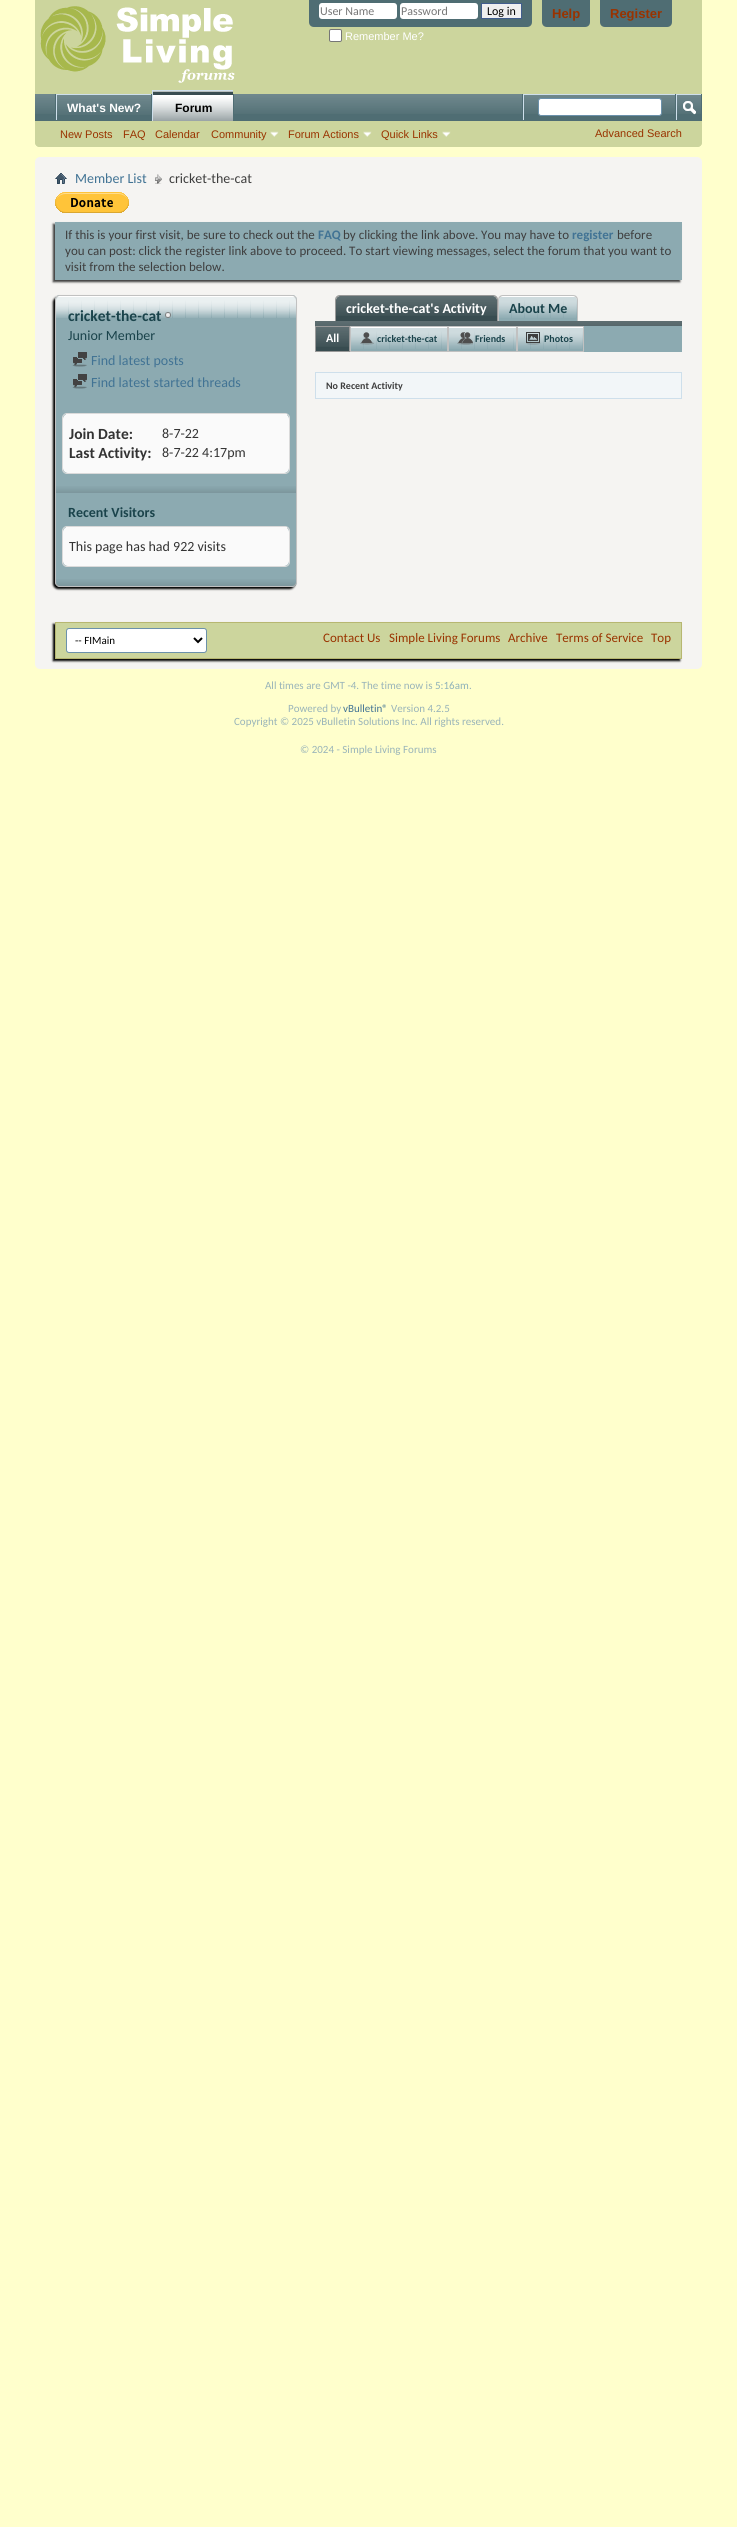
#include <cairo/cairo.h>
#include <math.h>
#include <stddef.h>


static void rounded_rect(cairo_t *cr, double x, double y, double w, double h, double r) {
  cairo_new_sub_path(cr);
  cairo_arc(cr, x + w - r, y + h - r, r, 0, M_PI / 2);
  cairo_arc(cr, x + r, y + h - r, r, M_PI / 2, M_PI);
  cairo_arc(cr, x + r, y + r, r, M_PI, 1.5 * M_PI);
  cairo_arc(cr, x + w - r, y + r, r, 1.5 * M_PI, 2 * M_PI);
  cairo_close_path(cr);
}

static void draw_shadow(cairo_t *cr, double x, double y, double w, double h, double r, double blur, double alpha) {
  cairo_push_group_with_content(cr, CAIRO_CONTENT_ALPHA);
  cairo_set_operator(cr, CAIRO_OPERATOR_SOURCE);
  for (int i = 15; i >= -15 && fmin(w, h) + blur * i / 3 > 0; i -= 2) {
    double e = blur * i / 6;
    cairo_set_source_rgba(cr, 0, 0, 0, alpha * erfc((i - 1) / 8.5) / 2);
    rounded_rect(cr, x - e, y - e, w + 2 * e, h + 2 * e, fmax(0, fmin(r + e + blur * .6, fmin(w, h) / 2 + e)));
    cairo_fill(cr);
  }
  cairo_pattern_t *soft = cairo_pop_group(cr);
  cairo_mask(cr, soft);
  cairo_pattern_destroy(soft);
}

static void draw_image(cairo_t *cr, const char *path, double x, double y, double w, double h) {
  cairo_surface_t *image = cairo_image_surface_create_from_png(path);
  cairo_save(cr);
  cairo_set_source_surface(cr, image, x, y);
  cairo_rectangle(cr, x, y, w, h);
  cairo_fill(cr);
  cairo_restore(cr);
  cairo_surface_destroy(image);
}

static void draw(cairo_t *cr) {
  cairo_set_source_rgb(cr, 1, 1, 204 / 255.0);
  cairo_paint(cr);
  cairo_set_source_rgb(cr, 204 / 255.0, 213 / 255.0, 157 / 255.0);
  cairo_new_path(cr);
  cairo_move_to(cr, 35, 0);
  cairo_line_to(cr, 702, 0);
  cairo_line_to(cr, 702, 142);
  cairo_curve_to(cr, 702, 145, 700, 147, 697, 147);
  cairo_line_to(cr, 40, 147);
  cairo_curve_to(cr, 37, 147, 35, 145, 35, 142);
  cairo_close_path(cr);
  cairo_fill(cr);
  draw_image(cr, "images/1.png", 40, 6, 195, 77);
  cairo_set_source_rgb(cr, 79 / 255.0, 109 / 255.0, 115 / 255.0);
  cairo_new_path(cr);
  cairo_move_to(cr, 309, 0);
  cairo_line_to(cr, 532, 0);
  cairo_line_to(cr, 532, 22);
  cairo_curve_to(cr, 532, 25, 530, 27, 527, 27);
  cairo_line_to(cr, 314, 27);
  cairo_curve_to(cr, 311, 27, 309, 25, 309, 22);
  cairo_close_path(cr);
  cairo_fill(cr);
  cairo_set_source_rgb(cr, 1, 1, 1);
  rounded_rect(cr, 319, 3, 78, 16, 3);
  cairo_fill(cr);
  rounded_rect(cr, 400, 3, 78, 16, 3);
  cairo_fill(cr);
  cairo_set_source_rgb(cr, 239 / 255.0, 239 / 255.0, 239 / 255.0);
  cairo_rectangle(cr, 481.5, 3.5, 40, 15);
  cairo_fill_preserve(cr);
  cairo_set_source_rgb(cr, 65 / 255.0, 93 / 255.0, 141 / 255.0);
  cairo_set_line_width(cr, 1);
  cairo_stroke(cr);
  cairo_set_source_rgb(cr, 1, 1, 1);
  rounded_rect(cr, 329.5, 29.5, 12, 12, 1.5);
  cairo_fill_preserve(cr);
  cairo_set_source_rgb(cr, 118 / 255.0, 118 / 255.0, 118 / 255.0);
  cairo_stroke(cr);
  cairo_set_source_rgb(cr, 79 / 255.0, 109 / 255.0, 115 / 255.0);
  cairo_new_path(cr);
  cairo_move_to(cr, 542, 0);
  cairo_line_to(cr, 590, 0);
  cairo_line_to(cr, 590, 22);
  cairo_curve_to(cr, 590, 25, 588, 27, 585, 27);
  cairo_line_to(cr, 547, 27);
  cairo_curve_to(cr, 544, 27, 542, 25, 542, 22);
  cairo_close_path(cr);
  cairo_fill(cr);
  cairo_new_path(cr);
  cairo_move_to(cr, 600, 0);
  cairo_line_to(cr, 672, 0);
  cairo_line_to(cr, 672, 22);
  cairo_curve_to(cr, 672, 25, 670, 27, 667, 27);
  cairo_line_to(cr, 605, 27);
  cairo_curve_to(cr, 602, 27, 600, 25, 600, 22);
  cairo_close_path(cr);
  cairo_fill(cr);
  cairo_set_source_rgb(cr, 204 / 255.0, 213 / 255.0, 157 / 255.0);
  cairo_new_path(cr);
  cairo_move_to(cr, 35, 94);
  cairo_line_to(cr, 702, 94);
  cairo_line_to(cr, 702, 142);
  cairo_curve_to(cr, 702, 145, 700, 147, 697, 147);
  cairo_line_to(cr, 40, 147);
  cairo_curve_to(cr, 37, 147, 35, 145, 35, 142);
  cairo_close_path(cr);
  cairo_fill(cr);
  cairo_set_source_rgb(cr, 79 / 255.0, 109 / 255.0, 115 / 255.0);
  cairo_rectangle(cr, 35, 94, 667, 26);
  cairo_fill(cr);
  draw_image(cr, "images/2.png", 35, 94, 666, 20);
  cairo_rectangle(cr, 151, 94, 1, 27);
  cairo_fill(cr);
  cairo_rectangle(cr, 55, 94, 1, 27);
  cairo_fill(cr);
  cairo_rectangle(cr, 57, 95, 94, 19);
  cairo_fill(cr);
  draw_image(cr, "images/3.png", 57, 95, 94, 20);
  cairo_set_source_rgb(cr, 206 / 255.0, 223 / 255.0, 235 / 255.0);
  cairo_rectangle(cr, 56, 94, 95, 1);
  cairo_fill(cr);
  cairo_rectangle(cr, 56, 94, 1, 27);
  cairo_fill(cr);
  cairo_set_source_rgb(cr, 79 / 255.0, 109 / 255.0, 115 / 255.0);
  cairo_rectangle(cr, 233, 94, 1, 26);
  cairo_fill(cr);
  cairo_rectangle(cr, 35, 120, 667, 1);
  cairo_fill(cr);
  cairo_set_source_rgb(cr, 56 / 255.0, 76 / 255.0, 80 / 255.0);
  cairo_rectangle(cr, 153, 91, 80, 30);
  cairo_fill(cr);
  draw_image(cr, "images/4.png", 153, 91, 80, 30);
  cairo_set_source_rgb(cr, 206 / 255.0, 223 / 255.0, 235 / 255.0);
  cairo_rectangle(cr, 152, 90, 81, 1);
  cairo_fill(cr);
  cairo_rectangle(cr, 152, 90, 1, 31);
  cairo_fill(cr);
  draw_image(cr, "images/5.png", 270, 131, 9, 6);
  draw_image(cr, "images/5.png", 363, 131, 9, 6);
  draw_image(cr, "images/5.png", 442, 131, 9, 6);
  cairo_set_source_rgb(cr, 79 / 255.0, 109 / 255.0, 115 / 255.0);
  cairo_rectangle(cr, 522, 94, 1, 26);
  cairo_fill(cr);
  cairo_set_source_rgb(cr, 206 / 255.0, 223 / 255.0, 235 / 255.0);
  cairo_rectangle(cr, 523, 94, 152, 1);
  cairo_fill(cr);
  cairo_rectangle(cr, 523, 94, 1, 26);
  cairo_fill(cr);
  cairo_set_source_rgb(cr, 1, 1, 1);
  rounded_rect(cr, 538.5, 98.5, 123, 17, 2.5);
  cairo_fill_preserve(cr);
  cairo_set_source_rgb(cr, 107 / 255.0, 145 / 255.0, 171 / 255.0);
  cairo_stroke(cr);
  cairo_set_source_rgb(cr, 79 / 255.0, 109 / 255.0, 115 / 255.0);
  cairo_rectangle(cr, 675, 94, 1, 26);
  cairo_fill(cr);
  cairo_set_source_rgb(cr, 206 / 255.0, 223 / 255.0, 235 / 255.0);
  cairo_rectangle(cr, 676, 94, 25, 1);
  cairo_fill(cr);
  cairo_rectangle(cr, 676, 94, 1, 26);
  cairo_fill(cr);
  draw_image(cr, "images/6.png", 683, 101, 13, 14);
  cairo_set_source_rgb(cr, 245 / 255.0, 244 / 255.0, 242 / 255.0);
  rounded_rect(cr, 35, 157, 667, 512, 5);
  cairo_fill(cr);
  draw_image(cr, "images/7.png", 55, 173, 12, 11);
  draw_image(cr, "images/8.png", 155, 174, 7, 10);
  draw_image(cr, "images/9.png", 55, 192, 74, 21);
  cairo_set_source_rgb(cr, 62 / 255.0, 62 / 255.0, 62 / 255.0);
  draw_shadow(cr, 53, 224, 627, 58, 0, 1, 1);
  cairo_set_source_rgb(cr, 140 / 255.0, 170 / 255.0, 177 / 255.0);
  cairo_rectangle(cr, 55, 222, 627, 58);
  cairo_fill(cr);
  cairo_set_source_rgb(cr, 0, 0, 0);
  draw_shadow(cr, 53, 297, 242, 292, 5, 1, 1);
  cairo_set_source_rgb(cr, 140 / 255.0, 170 / 255.0, 177 / 255.0);
  rounded_rect(cr, 55, 295, 242, 292, 5);
  cairo_fill(cr);
  draw_image(cr, "images/10.png", 55, 296, 242, 22);
  rounded_rect(cr, 55.5, 295.5, 241, 291, 4.5);
  cairo_set_source_rgb(cr, 193 / 255.0, 193 / 255.0, 193 / 255.0);
  cairo_stroke(cr);
  draw_image(cr, "images/11.png", 56, 296, 240, 22);
  draw_image(cr, "images/12.png", 165, 312, 6, 6);
  draw_image(cr, "images/13.png", 72, 352, 15, 15);
  draw_image(cr, "images/13.png", 72, 374, 15, 15);
  rounded_rect(cr, 62.5, 413.5, 227, 60, 4.5);
  cairo_set_source_rgb(cr, 218 / 255.0, 218 / 255.0, 218 / 255.0);
  cairo_stroke(cr);
  cairo_set_source_rgb(cr, 250 / 255.0, 250 / 255.0, 250 / 255.0);
  rounded_rect(cr, 63, 414, 226, 59, 5);
  cairo_fill(cr);
  cairo_rectangle(cr, 66, 414, 221, 1);
  cairo_fill(cr);
  draw_image(cr, "images/14.png", 56, 486, 240, 7);
  rounded_rect(cr, 62.5, 526.5, 227, 40, 4.5);
  cairo_set_source_rgb(cr, 218 / 255.0, 218 / 255.0, 218 / 255.0);
  cairo_stroke(cr);
  cairo_set_source_rgb(cr, 250 / 255.0, 250 / 255.0, 250 / 255.0);
  rounded_rect(cr, 63, 527, 226, 39, 5);
  cairo_fill(cr);
  cairo_rectangle(cr, 66, 527, 221, 1);
  cairo_fill(cr);
  draw_image(cr, "images/15.png", 56, 579, 240, 7);
  cairo_set_source_rgb(cr, 56 / 255.0, 76 / 255.0, 80 / 255.0);
  cairo_new_path(cr);
  cairo_move_to(cr, 340, 296);
  cairo_line_to(cr, 493, 296);
  cairo_curve_to(cr, 495, 296, 497, 298, 497, 300);
  cairo_line_to(cr, 497, 321);
  cairo_line_to(cr, 336, 321);
  cairo_line_to(cr, 336, 300);
  cairo_curve_to(cr, 336, 298, 338, 296, 340, 296);
  cairo_close_path(cr);
  cairo_fill(cr);
  draw_image(cr, "images/16.png", 336, 296, 161, 20);
  cairo_set_source_rgb(cr, 153 / 255.0, 153 / 255.0, 153 / 255.0);
  cairo_set_fill_rule(cr, CAIRO_FILL_RULE_EVEN_ODD);
  cairo_new_path(cr);
  cairo_move_to(cr, 340, 295);
  cairo_line_to(cr, 493, 295);
  cairo_curve_to(cr, 496, 295, 498, 297, 498, 300);
  cairo_line_to(cr, 498, 321);
  cairo_line_to(cr, 335, 321);
  cairo_line_to(cr, 335, 300);
  cairo_curve_to(cr, 335, 297, 337, 295, 340, 295);
  cairo_close_path(cr);
  cairo_move_to(cr, 340, 296);
  cairo_line_to(cr, 493, 296);
  cairo_curve_to(cr, 495, 296, 497, 298, 497, 300);
  cairo_line_to(cr, 497, 321);
  cairo_line_to(cr, 336, 321);
  cairo_line_to(cr, 336, 300);
  cairo_curve_to(cr, 336, 298, 338, 296, 340, 296);
  cairo_close_path(cr);
  cairo_fill(cr);
  cairo_set_source_rgb(cr, 140 / 255.0, 170 / 255.0, 177 / 255.0);
  cairo_new_path(cr);
  cairo_move_to(cr, 503, 296);
  cairo_line_to(cr, 573, 296);
  cairo_curve_to(cr, 575, 296, 577, 298, 577, 300);
  cairo_line_to(cr, 577, 321);
  cairo_line_to(cr, 499, 321);
  cairo_line_to(cr, 499, 300);
  cairo_curve_to(cr, 499, 298, 501, 296, 503, 296);
  cairo_close_path(cr);
  cairo_fill(cr);
  draw_image(cr, "images/17.png", 498, 296, 80, 22);
  cairo_set_source_rgb(cr, 193 / 255.0, 193 / 255.0, 193 / 255.0);
  cairo_new_path(cr);
  cairo_move_to(cr, 503, 295);
  cairo_line_to(cr, 573, 295);
  cairo_curve_to(cr, 576, 295, 578, 297, 578, 300);
  cairo_line_to(cr, 578, 321);
  cairo_line_to(cr, 498, 321);
  cairo_line_to(cr, 498, 300);
  cairo_curve_to(cr, 498, 297, 500, 295, 503, 295);
  cairo_close_path(cr);
  cairo_move_to(cr, 503, 296);
  cairo_line_to(cr, 573, 296);
  cairo_curve_to(cr, 575, 296, 577, 298, 577, 300);
  cairo_line_to(cr, 577, 321);
  cairo_line_to(cr, 499, 321);
  cairo_line_to(cr, 499, 300);
  cairo_curve_to(cr, 499, 298, 501, 296, 503, 296);
  cairo_close_path(cr);
  cairo_fill(cr);
  cairo_set_source_rgb(cr, 56 / 255.0, 76 / 255.0, 80 / 255.0);
  cairo_rectangle(cr, 315, 321, 367, 5);
  cairo_fill(cr);
  draw_image(cr, "images/18.png", 315, 321, 367, 5);
  cairo_set_source_rgb(cr, 140 / 255.0, 170 / 255.0, 177 / 255.0);
  cairo_rectangle(cr, 351, 326, 331, 26);
  cairo_fill(cr);
  cairo_set_source_rgb(cr, 56 / 255.0, 76 / 255.0, 80 / 255.0);
  cairo_rectangle(cr, 316, 327, 33, 24);
  cairo_fill(cr);
  draw_image(cr, "images/19.png", 316, 327, 33, 20);
  cairo_rectangle(cr, 315.5, 326.5, 34, 25);
  cairo_set_source_rgb(cr, 153 / 255.0, 153 / 255.0, 153 / 255.0);
  cairo_stroke(cr);
  draw_image(cr, "images/20.png", 351, 327, 96, 22);
  cairo_rectangle(cr, 350.5, 326.5, 97, 25);
  cairo_set_source_rgb(cr, 193 / 255.0, 193 / 255.0, 193 / 255.0);
  cairo_stroke(cr);
  draw_image(cr, "images/21.png", 360, 332, 14, 13);
  draw_image(cr, "images/22.png", 449, 327, 67, 22);
  cairo_rectangle(cr, 448.5, 326.5, 68, 25);
  cairo_stroke(cr);
  draw_image(cr, "images/23.png", 457, 332, 16, 13);
  draw_image(cr, "images/24.png", 518, 327, 65, 22);
  cairo_rectangle(cr, 517.5, 326.5, 66, 25);
  cairo_stroke(cr);
  draw_image(cr, "images/25.png", 526, 332, 15, 13);
  cairo_set_source_rgb(cr, 242 / 255.0, 246 / 255.0, 248 / 255.0);
  cairo_rectangle(cr, 315.5, 372.5, 366, 26);
  cairo_fill_preserve(cr);
  cairo_set_source_rgb(cr, 206 / 255.0, 223 / 255.0, 235 / 255.0);
  cairo_stroke(cr);
  cairo_set_source_rgb(cr, 0, 0, 0);
  draw_shadow(cr, 53, 624, 627, 37, 0, 1, 1);
  cairo_set_source_rgb(cr, 204 / 255.0, 213 / 255.0, 157 / 255.0);
  cairo_rectangle(cr, 55.5, 622.5, 626, 36);
  cairo_fill_preserve(cr);
  cairo_set_source_rgb(cr, 183 / 255.0, 183 / 255.0, 113 / 255.0);
  cairo_stroke(cr);
  cairo_set_source_rgb(cr, 1, 1, 1);
  rounded_rect(cr, 66.5, 628.5, 140, 24, 2.5);
  cairo_fill_preserve(cr);
  cairo_set_source_rgb(cr, 107 / 255.0, 145 / 255.0, 171 / 255.0);
  cairo_stroke(cr);
  cairo_new_path(cr);
  cairo_move_to(cr, 194, 638);
  cairo_line_to(cr, 198, 642);
  cairo_line_to(cr, 202, 638);
  cairo_set_source_rgb(cr, 0, 0, 0);
  cairo_set_line_width(cr, 2);
  cairo_stroke(cr);
  cairo_select_font_face(cr, "Carlito", CAIRO_FONT_SLANT_NORMAL, CAIRO_FONT_WEIGHT_NORMAL);
  cairo_set_font_size(cr, 12);
  cairo_set_source_rgb(cr, 119 / 255.0, 119 / 255.0, 119 / 255.0);
  cairo_move_to(cr, 320, 15);
  cairo_show_text(cr, "User Name");
  cairo_move_to(cr, 401, 15);
  cairo_show_text(cr, "Password");
  cairo_set_source_rgb(cr, 0, 0, 0);
  cairo_move_to(cr, 487, 15);
  cairo_show_text(cr, "Log in");
  cairo_select_font_face(cr, "Liberation Sans", CAIRO_FONT_SLANT_NORMAL, CAIRO_FONT_WEIGHT_NORMAL);
  cairo_set_font_size(cr, 11);
  cairo_set_source_rgb(cr, 1, 1, 1);
  cairo_move_to(cr, 345, 40);
  cairo_show_text(cr, "Remember Me?");
  cairo_select_font_face(cr, "Liberation Sans", CAIRO_FONT_SLANT_NORMAL, CAIRO_FONT_WEIGHT_BOLD);
  cairo_set_font_size(cr, 13);
  cairo_set_source_rgb(cr, 153 / 255.0, 51 / 255.0, 0);
  cairo_move_to(cr, 552, 18);
  cairo_show_text(cr, "Help");
  cairo_move_to(cr, 610, 18);
  cairo_show_text(cr, "Register");
  cairo_set_font_size(cr, 12);
  cairo_set_source_rgb(cr, 1, 1, 1);
  cairo_move_to(cr, 67, 112);
  cairo_show_text(cr, "What's New?");
  cairo_set_source_rgb(cr, 0, 0, 0);
  cairo_move_to(cr, 175, 112);
  cairo_show_text(cr, "Forum");
  cairo_select_font_face(cr, "Liberation Sans", CAIRO_FONT_SLANT_NORMAL, CAIRO_FONT_WEIGHT_NORMAL);
  cairo_set_font_size(cr, 11);
  cairo_set_source_rgb(cr, 153 / 255.0, 51 / 255.0, 0);
  cairo_move_to(cr, 60, 138);
  cairo_show_text(cr, "New Posts");
  cairo_move_to(cr, 123, 138);
  cairo_show_text(cr, "FAQ");
  cairo_move_to(cr, 155, 138);
  cairo_show_text(cr, "Calendar");
  cairo_move_to(cr, 211, 138);
  cairo_show_text(cr, "Community");
  cairo_move_to(cr, 288, 138);
  cairo_show_text(cr, "Forum Actions");
  cairo_move_to(cr, 381, 138);
  cairo_show_text(cr, "Quick Links");
  cairo_move_to(cr, 595, 137);
  cairo_show_text(cr, "Advanced Search");
  cairo_select_font_face(cr, "Carlito", CAIRO_FONT_SLANT_NORMAL, CAIRO_FONT_WEIGHT_NORMAL);
  cairo_set_font_size(cr, 14);
  cairo_set_source_rgb(cr, 65 / 255.0, 115 / 255.0, 148 / 255.0);
  cairo_move_to(cr, 75, 183);
  cairo_show_text(cr, "Member List");
  cairo_set_source_rgb(cr, 62 / 255.0, 62 / 255.0, 62 / 255.0);
  cairo_move_to(cr, 169, 183);
  cairo_show_text(cr, "cricket-the-cat");
  cairo_set_font_size(cr, 13);
  cairo_move_to(cr, 65, 239);
  cairo_show_text(cr, "If this is your first visit, be sure to check out the");
  cairo_select_font_face(cr, "Carlito", CAIRO_FONT_SLANT_NORMAL, CAIRO_FONT_WEIGHT_BOLD);
  cairo_set_source_rgb(cr, 65 / 255.0, 115 / 255.0, 148 / 255.0);
  cairo_move_to(cr, 318, 239);
  cairo_show_text(cr, "FAQ");
  cairo_select_font_face(cr, "Carlito", CAIRO_FONT_SLANT_NORMAL, CAIRO_FONT_WEIGHT_NORMAL);
  cairo_set_source_rgb(cr, 62 / 255.0, 62 / 255.0, 62 / 255.0);
  cairo_move_to(cr, 343, 239);
  cairo_show_text(cr, "by clicking the link above. You may have to");
  cairo_select_font_face(cr, "Carlito", CAIRO_FONT_SLANT_NORMAL, CAIRO_FONT_WEIGHT_BOLD);
  cairo_set_source_rgb(cr, 65 / 255.0, 115 / 255.0, 148 / 255.0);
  cairo_move_to(cr, 572, 239);
  cairo_show_text(cr, "register");
  cairo_select_font_face(cr, "Carlito", CAIRO_FONT_SLANT_NORMAL, CAIRO_FONT_WEIGHT_NORMAL);
  cairo_set_source_rgb(cr, 62 / 255.0, 62 / 255.0, 62 / 255.0);
  cairo_move_to(cr, 617, 239);
  cairo_show_text(cr, "before");
  cairo_move_to(cr, 65, 255);
  cairo_show_text(cr, "you can post: click the register link above to proceed. To start viewing messages, select the forum that you want to");
  cairo_move_to(cr, 65, 271);
  cairo_show_text(cr, "visit from the selection below.");
  cairo_select_font_face(cr, "Carlito", CAIRO_FONT_SLANT_NORMAL, CAIRO_FONT_WEIGHT_BOLD);
  cairo_set_font_size(cr, 15.5);
  cairo_set_source_rgb(cr, 26 / 255.0, 67 / 255.0, 75 / 255.0);
  cairo_move_to(cr, 68, 321);
  cairo_show_text(cr, "cricket-the-cat");
  cairo_select_font_face(cr, "Carlito", CAIRO_FONT_SLANT_NORMAL, CAIRO_FONT_WEIGHT_NORMAL);
  cairo_set_font_size(cr, 14);
  cairo_move_to(cr, 68, 340);
  cairo_show_text(cr, "Junior Member");
  cairo_set_source_rgb(cr, 65 / 255.0, 115 / 255.0, 148 / 255.0);
  cairo_move_to(cr, 91, 365);
  cairo_show_text(cr, "Find latest posts");
  cairo_move_to(cr, 91, 387);
  cairo_show_text(cr, "Find latest started threads");
  cairo_select_font_face(cr, "Carlito", CAIRO_FONT_SLANT_NORMAL, CAIRO_FONT_WEIGHT_BOLD);
  cairo_set_font_size(cr, 15.5);
  cairo_set_source_rgb(cr, 51 / 255.0, 51 / 255.0, 51 / 255.0);
  cairo_move_to(cr, 69, 439);
  cairo_show_text(cr, "Join Date:");
  cairo_select_font_face(cr, "Carlito", CAIRO_FONT_SLANT_NORMAL, CAIRO_FONT_WEIGHT_NORMAL);
  cairo_set_font_size(cr, 14);
  cairo_move_to(cr, 162, 438);
  cairo_show_text(cr, "8-7-22");
  cairo_select_font_face(cr, "Carlito", CAIRO_FONT_SLANT_NORMAL, CAIRO_FONT_WEIGHT_BOLD);
  cairo_set_font_size(cr, 15.5);
  cairo_move_to(cr, 69, 458);
  cairo_show_text(cr, "Last Activity:");
  cairo_select_font_face(cr, "Carlito", CAIRO_FONT_SLANT_NORMAL, CAIRO_FONT_WEIGHT_NORMAL);
  cairo_set_font_size(cr, 14);
  cairo_move_to(cr, 162, 457);
  cairo_show_text(cr, "8-7-22 4:17pm");
  cairo_select_font_face(cr, "Carlito", CAIRO_FONT_SLANT_NORMAL, CAIRO_FONT_WEIGHT_BOLD);
  cairo_set_source_rgb(cr, 26 / 255.0, 67 / 255.0, 75 / 255.0);
  cairo_move_to(cr, 68, 517);
  cairo_show_text(cr, "Recent Visitors");
  cairo_select_font_face(cr, "Carlito", CAIRO_FONT_SLANT_NORMAL, CAIRO_FONT_WEIGHT_NORMAL);
  cairo_set_source_rgb(cr, 51 / 255.0, 51 / 255.0, 51 / 255.0);
  cairo_move_to(cr, 69, 551);
  cairo_show_text(cr, "This page has had 922 visits");
  cairo_select_font_face(cr, "Carlito", CAIRO_FONT_SLANT_NORMAL, CAIRO_FONT_WEIGHT_BOLD);
  cairo_set_source_rgb(cr, 1, 1, 1);
  cairo_move_to(cr, 346, 313);
  cairo_show_text(cr, "cricket-the-cat's Activity");
  cairo_set_source_rgb(cr, 26 / 255.0, 67 / 255.0, 75 / 255.0);
  cairo_move_to(cr, 509, 313);
  cairo_show_text(cr, "About Me");
  cairo_set_font_size(cr, 12);
  cairo_set_source_rgb(cr, 1, 1, 1);
  cairo_move_to(cr, 326, 342);
  cairo_show_text(cr, "All");
  cairo_set_font_size(cr, 10);
  cairo_set_source_rgb(cr, 26 / 255.0, 67 / 255.0, 75 / 255.0);
  cairo_move_to(cr, 377, 342);
  cairo_show_text(cr, "cricket-the-cat");
  cairo_move_to(cr, 475, 342);
  cairo_show_text(cr, "Friends");
  cairo_move_to(cr, 544, 342);
  cairo_show_text(cr, "Photos");
  cairo_set_source_rgb(cr, 62 / 255.0, 62 / 255.0, 62 / 255.0);
  cairo_move_to(cr, 326, 389);
  cairo_show_text(cr, "No Recent Activity");
  cairo_select_font_face(cr, "Carlito", CAIRO_FONT_SLANT_NORMAL, CAIRO_FONT_WEIGHT_NORMAL);
  cairo_set_font_size(cr, 11);
  cairo_set_source_rgb(cr, 0, 0, 0);
  cairo_move_to(cr, 75, 644);
  cairo_show_text(cr, "-- FIMain");
  cairo_set_font_size(cr, 13);
  cairo_set_source_rgb(cr, 153 / 255.0, 51 / 255.0, 0);
  cairo_move_to(cr, 323, 642);
  cairo_show_text(cr, "Contact Us");
  cairo_move_to(cr, 389, 642);
  cairo_show_text(cr, "Simple Living Forums");
  cairo_move_to(cr, 508, 642);
  cairo_show_text(cr, "Archive");
  cairo_move_to(cr, 556, 642);
  cairo_show_text(cr, "Terms of Service");
  cairo_move_to(cr, 651, 642);
  cairo_show_text(cr, "Top");
  cairo_set_font_size(cr, 11);
  cairo_set_source_rgb(cr, 153 / 255.0, 180 / 255.0, 185 / 255.0);
  cairo_move_to(cr, 265, 689);
  cairo_show_text(cr, "All times are GMT -4. The time now is");
  cairo_set_source_rgb(cr, 142 / 255.0, 178 / 255.0, 185 / 255.0);
  cairo_move_to(cr, 435, 689);
  cairo_show_text(cr, "5:16am");
  cairo_set_source_rgb(cr, 153 / 255.0, 180 / 255.0, 185 / 255.0);
  cairo_move_to(cr, 469, 689);
  cairo_show_text(cr, ".");
  cairo_move_to(cr, 288, 712);
  cairo_show_text(cr, "Powered by");
  cairo_set_source_rgb(cr, 65 / 255.0, 115 / 255.0, 148 / 255.0);
  cairo_move_to(cr, 343, 712);
  cairo_show_text(cr, "vBulletin®");
  cairo_set_source_rgb(cr, 153 / 255.0, 180 / 255.0, 185 / 255.0);
  cairo_move_to(cr, 391, 712);
  cairo_show_text(cr, "Version 4.2.5");
  cairo_move_to(cr, 234, 725);
  cairo_show_text(cr, "Copyright © 2025 vBulletin Solutions Inc. All rights reserved.");
  cairo_move_to(cr, 300, 753);
  cairo_show_text(cr, "© 2024 - Simple Living Forums");
}

int main(void) {
  cairo_surface_t *surface = cairo_image_surface_create(CAIRO_FORMAT_RGB24, 737, 2527);
  cairo_t *cr = cairo_create(surface);
  cairo_font_options_t *options = cairo_font_options_create();
  cairo_font_options_set_hint_metrics(options, CAIRO_HINT_METRICS_OFF);
  cairo_font_options_set_hint_style(options, CAIRO_HINT_STYLE_NONE);
  cairo_set_font_options(cr, options);
  cairo_set_miter_limit(cr, 4);
  draw(cr);
  cairo_surface_write_to_png(surface, "out.png");
  cairo_font_options_destroy(options);
  cairo_destroy(cr);
  cairo_surface_destroy(surface);
  return 0;
}
